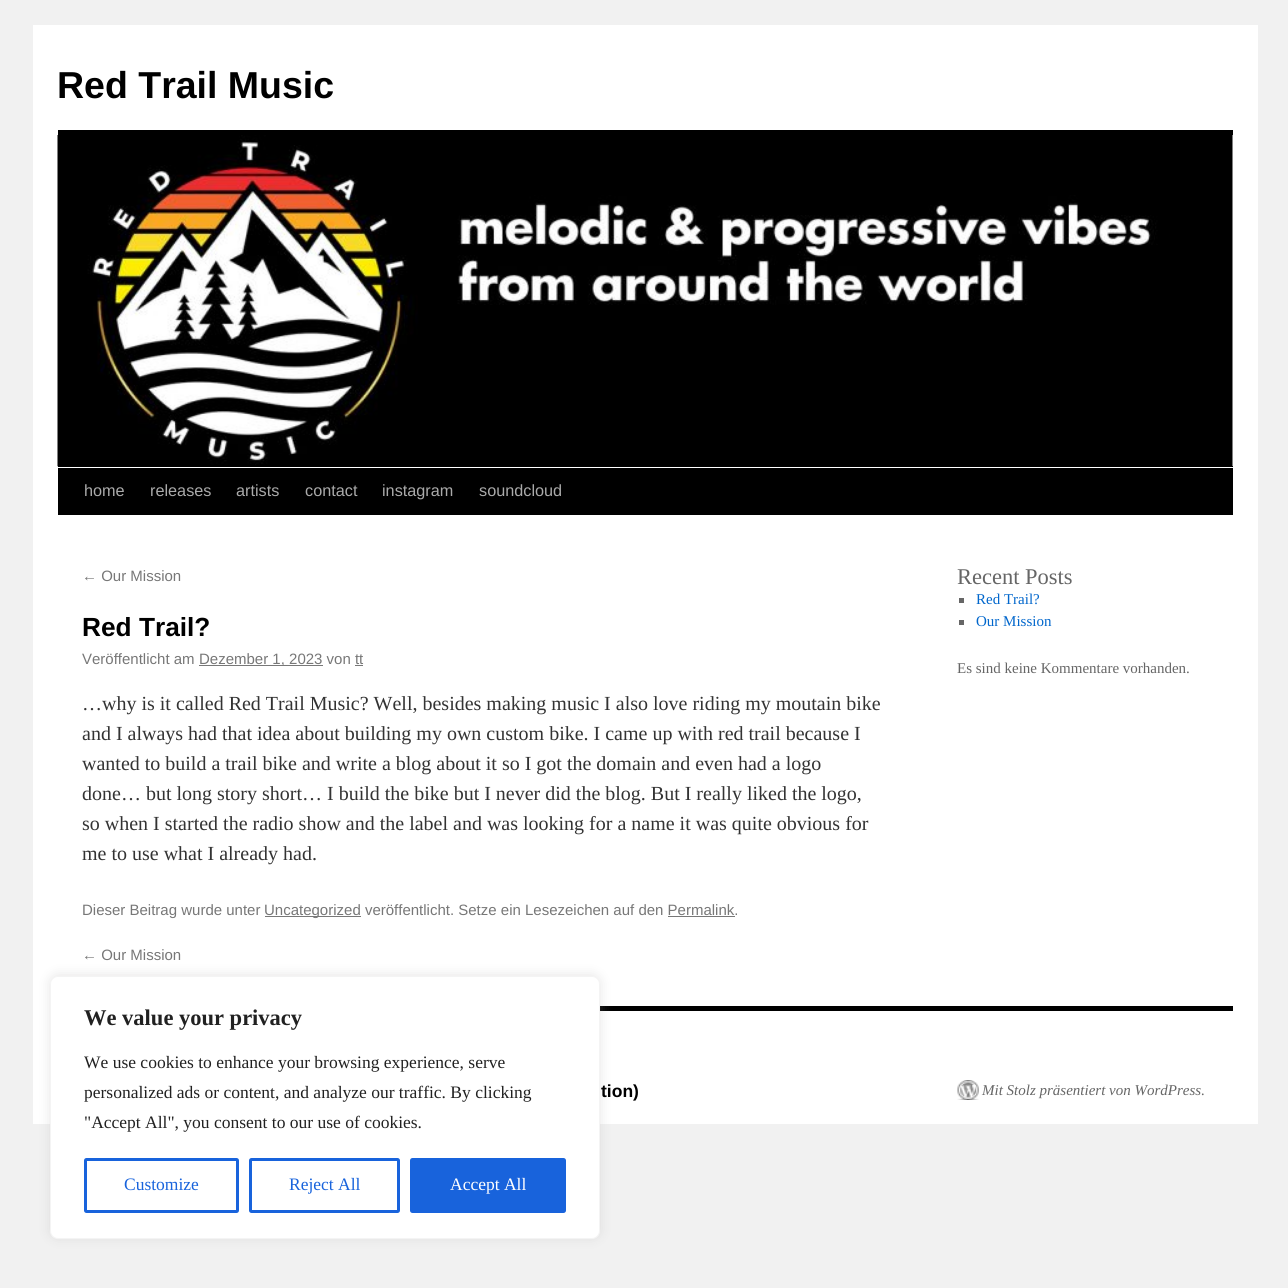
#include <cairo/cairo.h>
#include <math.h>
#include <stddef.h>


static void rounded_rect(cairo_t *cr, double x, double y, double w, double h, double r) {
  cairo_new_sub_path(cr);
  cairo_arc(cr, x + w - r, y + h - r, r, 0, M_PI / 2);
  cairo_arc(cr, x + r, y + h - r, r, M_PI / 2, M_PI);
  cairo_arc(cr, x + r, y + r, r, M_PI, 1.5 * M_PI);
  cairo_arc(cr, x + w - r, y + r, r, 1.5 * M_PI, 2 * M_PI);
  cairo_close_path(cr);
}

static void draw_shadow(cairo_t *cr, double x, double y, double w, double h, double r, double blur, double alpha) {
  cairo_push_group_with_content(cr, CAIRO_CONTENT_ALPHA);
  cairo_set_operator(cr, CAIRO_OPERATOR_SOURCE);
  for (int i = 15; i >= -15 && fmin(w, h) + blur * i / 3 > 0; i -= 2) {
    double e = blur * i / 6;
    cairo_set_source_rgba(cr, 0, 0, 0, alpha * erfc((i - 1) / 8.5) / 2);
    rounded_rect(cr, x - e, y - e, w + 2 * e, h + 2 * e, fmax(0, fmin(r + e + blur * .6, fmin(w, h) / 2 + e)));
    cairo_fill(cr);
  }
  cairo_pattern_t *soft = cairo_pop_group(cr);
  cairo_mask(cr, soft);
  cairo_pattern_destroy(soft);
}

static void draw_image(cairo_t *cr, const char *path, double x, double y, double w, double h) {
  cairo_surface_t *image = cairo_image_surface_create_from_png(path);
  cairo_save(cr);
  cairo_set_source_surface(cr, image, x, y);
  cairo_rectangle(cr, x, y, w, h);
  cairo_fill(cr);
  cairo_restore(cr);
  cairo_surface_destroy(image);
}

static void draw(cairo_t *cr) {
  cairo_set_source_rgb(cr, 241 / 255.0, 241 / 255.0, 241 / 255.0);
  cairo_paint(cr);
  cairo_set_source_rgb(cr, 1, 1, 1);
  cairo_rectangle(cr, 33, 25, 1225, 1099);
  cairo_fill(cr);
  cairo_set_source_rgb(cr, 0, 0, 0);
  cairo_rectangle(cr, 58, 130, 1175, 5);
  cairo_fill(cr);
  cairo_rectangle(cr, 58, 466, 1175, 1);
  cairo_fill(cr);
  draw_image(cr, "images/1.png", 57, 135, 1176, 332);
  cairo_rectangle(cr, 58, 468, 1175, 47);
  cairo_fill(cr);
  cairo_set_source_rgb(cr, 119 / 255.0, 119 / 255.0, 119 / 255.0);
  cairo_rectangle(cr, 199, 665, 124, 1);
  cairo_fill(cr);
  cairo_rectangle(cr, 355, 665, 8, 1);
  cairo_fill(cr);
  cairo_rectangle(cr, 265, 916, 96, 1);
  cairo_fill(cr);
  cairo_rectangle(cr, 668, 916, 67, 1);
  cairo_fill(cr);
  cairo_set_source_rgb(cr, 102 / 255.0, 102 / 255.0, 102 / 255.0);
  cairo_rectangle(cr, 959, 598, 5, 5);
  cairo_fill(cr);
  cairo_rectangle(cr, 959, 620, 5, 5);
  cairo_fill(cr);
  cairo_set_source_rgb(cr, 0, 0, 0);
  cairo_rectangle(cr, 600, 1006, 633, 5);
  cairo_fill(cr);
  draw_image(cr, "images/2.png", 957, 1080, 22, 20);
  cairo_set_source_rgb(cr, 172 / 255.0, 171 / 255.0, 171 / 255.0);
  draw_shadow(cr, 50, 975, 550, 263, 8, 6, 0.3);
  cairo_set_source_rgb(cr, 1, 1, 1);
  rounded_rect(cr, 50.5, 976.5, 549, 262, 7.5);
  cairo_fill_preserve(cr);
  cairo_set_source_rgb(cr, 244 / 255.0, 244 / 255.0, 244 / 255.0);
  cairo_set_line_width(cr, 1);
  cairo_stroke(cr);
  rounded_rect(cr, 85.5, 1159.5, 152, 52, 1);
  cairo_set_source_rgb(cr, 24 / 255.0, 99 / 255.0, 220 / 255.0);
  cairo_set_line_width(cr, 3);
  cairo_stroke(cr);
  rounded_rect(cr, 250.5, 1159.5, 148, 52, 1);
  cairo_stroke(cr);
  rounded_rect(cr, 411.5, 1159.5, 153, 52, 1);
  cairo_fill_preserve(cr);
  cairo_stroke(cr);
  cairo_select_font_face(cr, "Liberation Sans", CAIRO_FONT_SLANT_NORMAL, CAIRO_FONT_WEIGHT_BOLD);
  cairo_set_font_size(cr, 37.5);
  cairo_set_source_rgb(cr, 0, 0, 0);
  cairo_move_to(cr, 57, 98);
  cairo_show_text(cr, "Red Trail Music");
  cairo_select_font_face(cr, "Liberation Sans", CAIRO_FONT_SLANT_NORMAL, CAIRO_FONT_WEIGHT_NORMAL);
  cairo_set_font_size(cr, 16.25);
  cairo_set_source_rgb(cr, 170 / 255.0, 170 / 255.0, 170 / 255.0);
  cairo_move_to(cr, 84, 496);
  cairo_show_text(cr, "home");
  cairo_move_to(cr, 150, 496);
  cairo_show_text(cr, "releases");
  cairo_move_to(cr, 236, 496);
  cairo_show_text(cr, "artists");
  cairo_move_to(cr, 305, 496);
  cairo_show_text(cr, "contact");
  cairo_move_to(cr, 382, 496);
  cairo_show_text(cr, "instagram");
  cairo_move_to(cr, 479, 496);
  cairo_show_text(cr, "soundcloud");
  cairo_set_font_size(cr, 15);
  cairo_set_source_rgb(cr, 119 / 255.0, 119 / 255.0, 119 / 255.0);
  cairo_move_to(cr, 82, 581);
  cairo_show_text(cr, "← Our Mission");
  cairo_select_font_face(cr, "Liberation Sans", CAIRO_FONT_SLANT_NORMAL, CAIRO_FONT_WEIGHT_BOLD);
  cairo_set_font_size(cr, 26.25);
  cairo_set_source_rgb(cr, 0, 0, 0);
  cairo_move_to(cr, 82, 636);
  cairo_show_text(cr, "Red Trail?");
  cairo_select_font_face(cr, "Liberation Sans", CAIRO_FONT_SLANT_NORMAL, CAIRO_FONT_WEIGHT_NORMAL);
  cairo_set_font_size(cr, 15);
  cairo_set_source_rgb(cr, 119 / 255.0, 119 / 255.0, 119 / 255.0);
  cairo_move_to(cr, 82, 664);
  cairo_show_text(cr, "Veröffentlicht am");
  cairo_move_to(cr, 199, 664);
  cairo_show_text(cr, "Dezember 1, 2023 von tt");
  cairo_select_font_face(cr, "Liberation Serif", CAIRO_FONT_SLANT_NORMAL, CAIRO_FONT_WEIGHT_NORMAL);
  cairo_set_font_size(cr, 20);
  cairo_set_source_rgb(cr, 51 / 255.0, 51 / 255.0, 51 / 255.0);
  cairo_move_to(cr, 82, 710);
  cairo_show_text(cr, "…why is it called Red Trail Music? Well, besides making music I also love riding my moutain bike");
  cairo_move_to(cr, 82, 740);
  cairo_show_text(cr, "and I always had that idea about building my own custom bike. I came up with red trail because I");
  cairo_move_to(cr, 82, 770);
  cairo_show_text(cr, "wanted to build a trail bike and write a blog about it so I got the domain and even had a logo");
  cairo_move_to(cr, 82, 800);
  cairo_show_text(cr, "done… but long story short… I build the bike but I never did the blog. But I really liked the logo,");
  cairo_move_to(cr, 82, 830);
  cairo_show_text(cr, "so when I started the radio show and the label and was looking for a name it was quite obvious for");
  cairo_move_to(cr, 82, 860);
  cairo_show_text(cr, "me to use what I already had.");
  cairo_select_font_face(cr, "Liberation Sans", CAIRO_FONT_SLANT_NORMAL, CAIRO_FONT_WEIGHT_NORMAL);
  cairo_set_font_size(cr, 15);
  cairo_set_source_rgb(cr, 119 / 255.0, 119 / 255.0, 119 / 255.0);
  cairo_move_to(cr, 82, 915);
  cairo_show_text(cr, "Dieser Beitrag wurde unter");
  cairo_move_to(cr, 264, 915);
  cairo_show_text(cr, "Uncategorized veröffentlicht. Setze ein Lesezeichen auf den Permalink.");
  cairo_move_to(cr, 82, 960);
  cairo_show_text(cr, "← Our Mission");
  cairo_select_font_face(cr, "Liberation Serif", CAIRO_FONT_SLANT_NORMAL, CAIRO_FONT_WEIGHT_NORMAL);
  cairo_set_font_size(cr, 22.5);
  cairo_set_source_rgb(cr, 102 / 255.0, 102 / 255.0, 102 / 255.0);
  cairo_move_to(cr, 957, 584);
  cairo_show_text(cr, "Recent Posts");
  cairo_set_font_size(cr, 15);
  cairo_set_source_rgb(cr, 0, 102 / 255.0, 204 / 255.0);
  cairo_move_to(cr, 976, 604);
  cairo_show_text(cr, "Red Trail?");
  cairo_move_to(cr, 976, 626);
  cairo_show_text(cr, "Our Mission");
  cairo_set_source_rgb(cr, 102 / 255.0, 102 / 255.0, 102 / 255.0);
  cairo_move_to(cr, 957, 673);
  cairo_show_text(cr, "Es sind keine Kommentare vorhanden.");
  cairo_select_font_face(cr, "Liberation Sans", CAIRO_FONT_SLANT_NORMAL, CAIRO_FONT_WEIGHT_BOLD);
  cairo_set_font_size(cr, 17.5);
  cairo_set_source_rgb(cr, 0, 0, 0);
  cairo_move_to(cr, 601, 1097);
  cairo_show_text(cr, "tion)");
  cairo_select_font_face(cr, "Liberation Serif", CAIRO_FONT_SLANT_ITALIC, CAIRO_FONT_WEIGHT_NORMAL);
  cairo_set_font_size(cr, 15);
  cairo_set_source_rgb(cr, 102 / 255.0, 102 / 255.0, 102 / 255.0);
  cairo_move_to(cr, 982, 1095);
  cairo_show_text(cr, "Mit Stolz präsentiert von WordPress.");
  cairo_select_font_face(cr, "Liberation Serif", CAIRO_FONT_SLANT_NORMAL, CAIRO_FONT_WEIGHT_BOLD);
  cairo_set_font_size(cr, 22.5);
  cairo_set_source_rgb(cr, 33 / 255.0, 33 / 255.0, 33 / 255.0);
  cairo_move_to(cr, 84, 1025);
  cairo_show_text(cr, "We value your privacy");
  cairo_select_font_face(cr, "Liberation Serif", CAIRO_FONT_SLANT_NORMAL, CAIRO_FONT_WEIGHT_NORMAL);
  cairo_set_font_size(cr, 17.5);
  cairo_move_to(cr, 84, 1068);
  cairo_show_text(cr, "We use cookies to enhance your browsing experience, serve");
  cairo_move_to(cr, 84, 1098);
  cairo_show_text(cr, "personalized ads or content, and analyze our traffic. By clicking");
  cairo_move_to(cr, 84, 1128);
  cairo_show_text(cr, "\"Accept All\", you consent to our use of cookies.");
  cairo_set_source_rgb(cr, 24 / 255.0, 99 / 255.0, 220 / 255.0);
  cairo_move_to(cr, 124, 1190);
  cairo_show_text(cr, "Customize");
  cairo_move_to(cr, 289, 1190);
  cairo_show_text(cr, "Reject All");
  cairo_set_source_rgb(cr, 1, 1, 1);
  cairo_move_to(cr, 450, 1190);
  cairo_show_text(cr, "Accept All");
}

int main(void) {
  cairo_surface_t *surface = cairo_image_surface_create(CAIRO_FORMAT_RGB24, 1288, 1288);
  cairo_t *cr = cairo_create(surface);
  cairo_font_options_t *options = cairo_font_options_create();
  cairo_font_options_set_hint_metrics(options, CAIRO_HINT_METRICS_OFF);
  cairo_font_options_set_hint_style(options, CAIRO_HINT_STYLE_NONE);
  cairo_set_font_options(cr, options);
  cairo_set_miter_limit(cr, 4);
  draw(cr);
  cairo_surface_write_to_png(surface, "out.png");
  cairo_font_options_destroy(options);
  cairo_destroy(cr);
  cairo_surface_destroy(surface);
  return 0;
}
